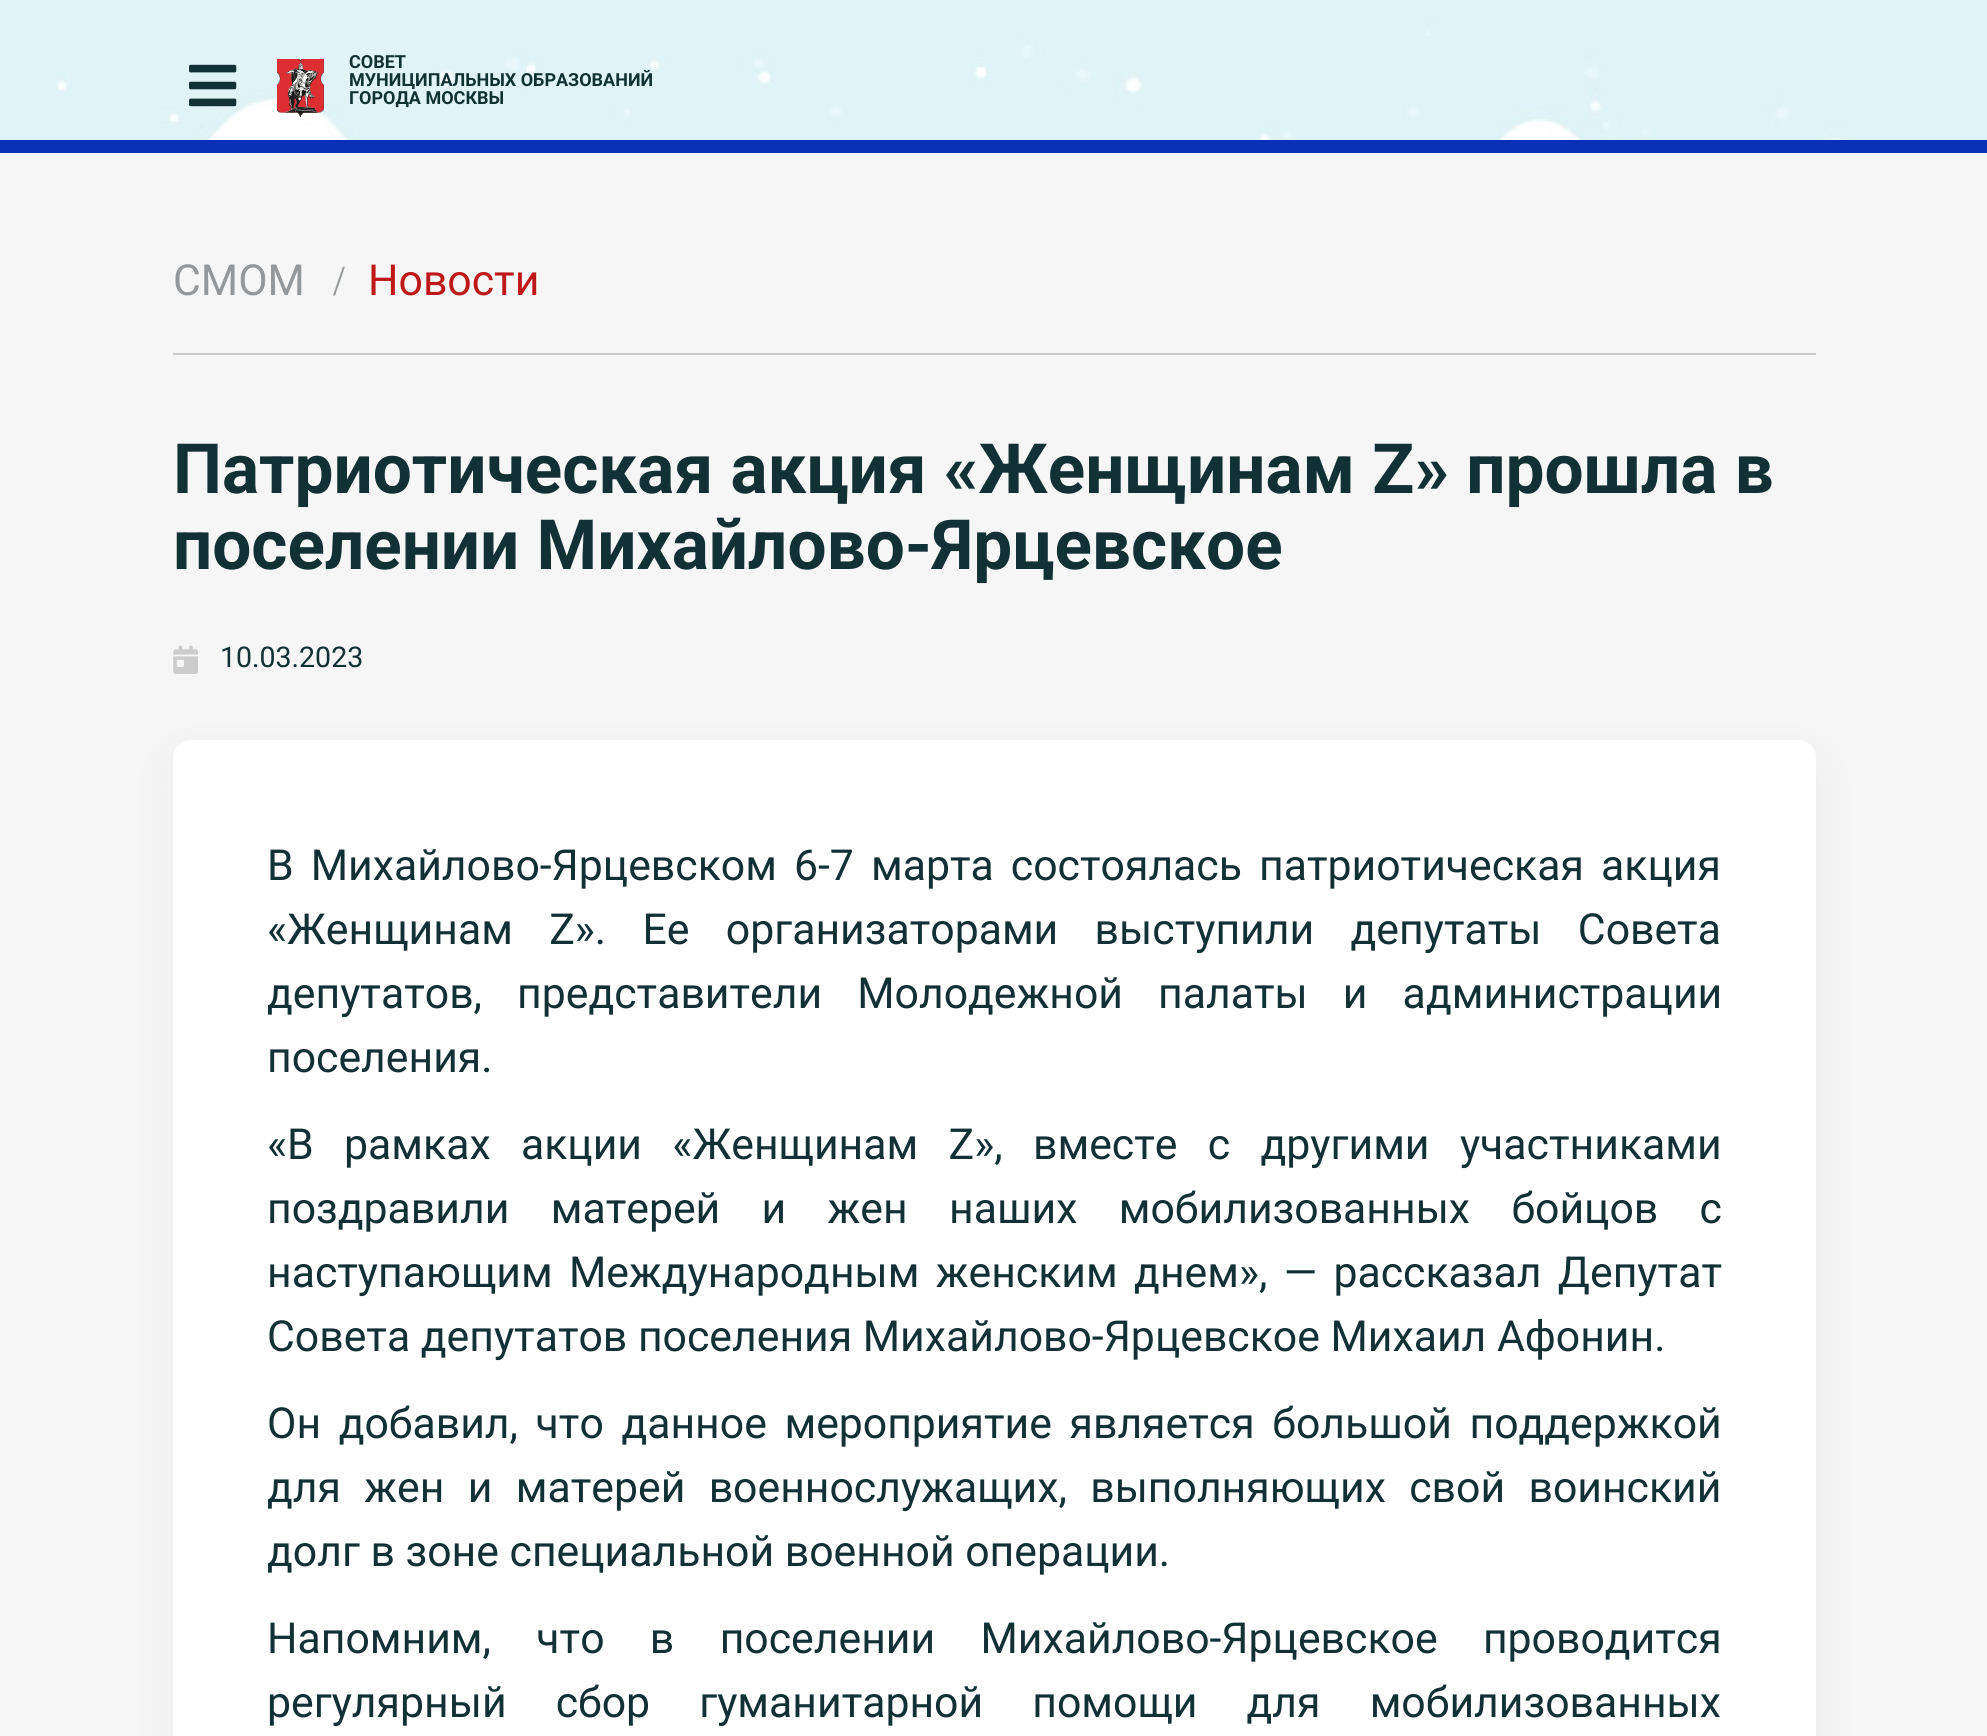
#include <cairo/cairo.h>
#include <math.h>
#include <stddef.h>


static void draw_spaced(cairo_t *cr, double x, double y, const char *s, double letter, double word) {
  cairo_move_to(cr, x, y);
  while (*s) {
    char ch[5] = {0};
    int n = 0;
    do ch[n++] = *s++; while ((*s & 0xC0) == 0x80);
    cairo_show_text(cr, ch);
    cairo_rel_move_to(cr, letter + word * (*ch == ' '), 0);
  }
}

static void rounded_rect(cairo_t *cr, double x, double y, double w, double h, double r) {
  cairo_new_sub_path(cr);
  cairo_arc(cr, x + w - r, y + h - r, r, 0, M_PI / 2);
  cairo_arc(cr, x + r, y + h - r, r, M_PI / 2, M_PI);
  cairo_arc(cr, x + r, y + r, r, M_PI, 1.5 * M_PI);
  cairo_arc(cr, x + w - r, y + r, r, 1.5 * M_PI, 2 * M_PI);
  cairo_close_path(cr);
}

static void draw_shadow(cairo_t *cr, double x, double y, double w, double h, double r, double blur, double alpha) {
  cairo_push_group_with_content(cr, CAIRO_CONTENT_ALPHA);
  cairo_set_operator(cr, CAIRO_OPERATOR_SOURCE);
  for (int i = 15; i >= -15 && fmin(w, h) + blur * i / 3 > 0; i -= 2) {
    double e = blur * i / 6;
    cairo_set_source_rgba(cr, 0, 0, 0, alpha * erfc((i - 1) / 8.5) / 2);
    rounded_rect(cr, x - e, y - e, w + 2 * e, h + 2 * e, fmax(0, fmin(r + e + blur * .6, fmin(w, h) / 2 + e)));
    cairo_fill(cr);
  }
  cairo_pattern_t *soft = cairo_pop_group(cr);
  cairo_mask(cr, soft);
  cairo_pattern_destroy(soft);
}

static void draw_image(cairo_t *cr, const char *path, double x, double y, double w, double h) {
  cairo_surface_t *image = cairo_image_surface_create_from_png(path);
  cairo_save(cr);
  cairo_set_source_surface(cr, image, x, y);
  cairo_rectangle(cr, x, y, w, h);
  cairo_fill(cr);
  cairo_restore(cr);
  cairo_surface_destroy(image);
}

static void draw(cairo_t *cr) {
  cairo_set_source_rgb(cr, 246 / 255.0, 246 / 255.0, 246 / 255.0);
  cairo_paint(cr);
  draw_image(cr, "images/1.png", 0, 0, 1987, 140);
  cairo_set_source_rgb(cr, 9 / 255.0, 49 / 255.0, 183 / 255.0);
  cairo_rectangle(cr, 0, 140, 1987, 13);
  cairo_fill(cr);
  draw_image(cr, "images/2.png", 189, 64, 48, 43);
  draw_image(cr, "images/3.png", 277, 59, 47, 58);
  cairo_set_source_rgb(cr, 201 / 255.0, 201 / 255.0, 201 / 255.0);
  cairo_rectangle(cr, 173, 353, 1643, 2);
  cairo_fill(cr);
  draw_image(cr, "images/4.png", 173, 645, 25, 29);
  cairo_set_source_rgb(cr, 0, 0, 0);
  draw_shadow(cr, 173, 758, 1643, 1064, 18, 22.5, 0.05);
  cairo_set_source_rgb(cr, 1, 1, 1);
  rounded_rect(cr, 173, 740, 1643, 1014, 18);
  cairo_fill(cr);
  cairo_select_font_face(cr, "Roboto", CAIRO_FONT_SLANT_NORMAL, CAIRO_FONT_WEIGHT_BOLD);
  cairo_set_font_size(cr, 18);
  cairo_set_source_rgb(cr, 18 / 255.0, 49 / 255.0, 53 / 255.0);
  cairo_move_to(cr, 349, 68);
  cairo_show_text(cr, "СОВЕТ");
  cairo_move_to(cr, 349, 86);
  cairo_show_text(cr, "МУНИЦИПАЛЬНЫХ ОБРАЗОВАНИЙ");
  cairo_move_to(cr, 349, 104);
  cairo_show_text(cr, "ГОРОДА МОСКВЫ");
  cairo_select_font_face(cr, "Roboto", CAIRO_FONT_SLANT_NORMAL, CAIRO_FONT_WEIGHT_NORMAL);
  cairo_set_font_size(cr, 42.75);
  cairo_set_source_rgb(cr, 149 / 255.0, 152 / 255.0, 154 / 255.0);
  cairo_move_to(cr, 173, 295);
  cairo_show_text(cr, "СМОМ");
  cairo_select_font_face(cr, "Liberation Serif", CAIRO_FONT_SLANT_NORMAL, CAIRO_FONT_WEIGHT_NORMAL);
  cairo_move_to(cr, 333, 295);
  cairo_show_text(cr, "/");
  cairo_select_font_face(cr, "Roboto", CAIRO_FONT_SLANT_NORMAL, CAIRO_FONT_WEIGHT_NORMAL);
  cairo_set_source_rgb(cr, 190 / 255.0, 24 / 255.0, 25 / 255.0);
  cairo_move_to(cr, 368, 295);
  cairo_show_text(cr, "Новости");
  cairo_select_font_face(cr, "Roboto", CAIRO_FONT_SLANT_NORMAL, CAIRO_FONT_WEIGHT_BOLD);
  cairo_set_font_size(cr, 69.3);
  cairo_set_source_rgb(cr, 18 / 255.0, 49 / 255.0, 53 / 255.0);
  cairo_move_to(cr, 173, 493);
  cairo_show_text(cr, "Патриотическая акция «Женщинам Z» прошла в");
  cairo_move_to(cr, 173, 569);
  cairo_show_text(cr, "поселении Михайлово-Ярцевское");
  cairo_select_font_face(cr, "Roboto", CAIRO_FONT_SLANT_NORMAL, CAIRO_FONT_WEIGHT_NORMAL);
  cairo_set_font_size(cr, 28.5);
  cairo_move_to(cr, 220, 667);
  cairo_show_text(cr, "10.03.2023");
  cairo_set_font_size(cr, 42.75);
  draw_spaced(cr, 267, 880, "В Михайлово-Ярцевском 6-7 марта состоялась патриотическая акция", 0, 6.5);
  draw_spaced(cr, 267, 944, "«Женщинам Z». Ее организаторами выступили депутаты Совета", 0, 25.75);
  draw_spaced(cr, 267, 1008, "депутатов, представители Молодежной палаты и администрации", 0, 24.5);
  cairo_move_to(cr, 267, 1072);
  cairo_show_text(cr, "поселения.");
  draw_spaced(cr, 267, 1159, "«В рамках акции «Женщинам Z», вместе с другими участниками", 0, 19.75);
  draw_spaced(cr, 267, 1223, "поздравили матерей и жен наших мобилизованных бойцов с", 0, 30.75);
  draw_spaced(cr, 267, 1287, "наступающим Международным женским днем», — рассказал Депутат", 0, 5.75);
  cairo_move_to(cr, 267, 1351);
  cairo_show_text(cr, "Совета депутатов поселения Михайлово-Ярцевское Михаил Афонин.");
  draw_spaced(cr, 267, 1438, "Он добавил, что данное мероприятие является большой поддержкой", 0, 7);
  draw_spaced(cr, 267, 1502, "для жен и матерей военнослужащих, выполняющих свой воинский", 0, 12.75);
  cairo_move_to(cr, 267, 1566);
  cairo_show_text(cr, "долг в зоне специальной военной операции.");
  draw_spaced(cr, 267, 1653, "Напомним, что в поселении Михайлово-Ярцевское проводится", 0, 34.75);
  draw_spaced(cr, 267, 1717, "регулярный сбор гуманитарной помощи для мобилизованных", 0, 38.5);
}

int main(void) {
  cairo_surface_t *surface = cairo_image_surface_create(CAIRO_FORMAT_RGB24, 1987, 1736);
  cairo_t *cr = cairo_create(surface);
  cairo_font_options_t *options = cairo_font_options_create();
  cairo_font_options_set_hint_metrics(options, CAIRO_HINT_METRICS_OFF);
  cairo_font_options_set_hint_style(options, CAIRO_HINT_STYLE_NONE);
  cairo_set_font_options(cr, options);
  cairo_set_miter_limit(cr, 4);
  draw(cr);
  cairo_surface_write_to_png(surface, "out.png");
  cairo_font_options_destroy(options);
  cairo_destroy(cr);
  cairo_surface_destroy(surface);
  return 0;
}
